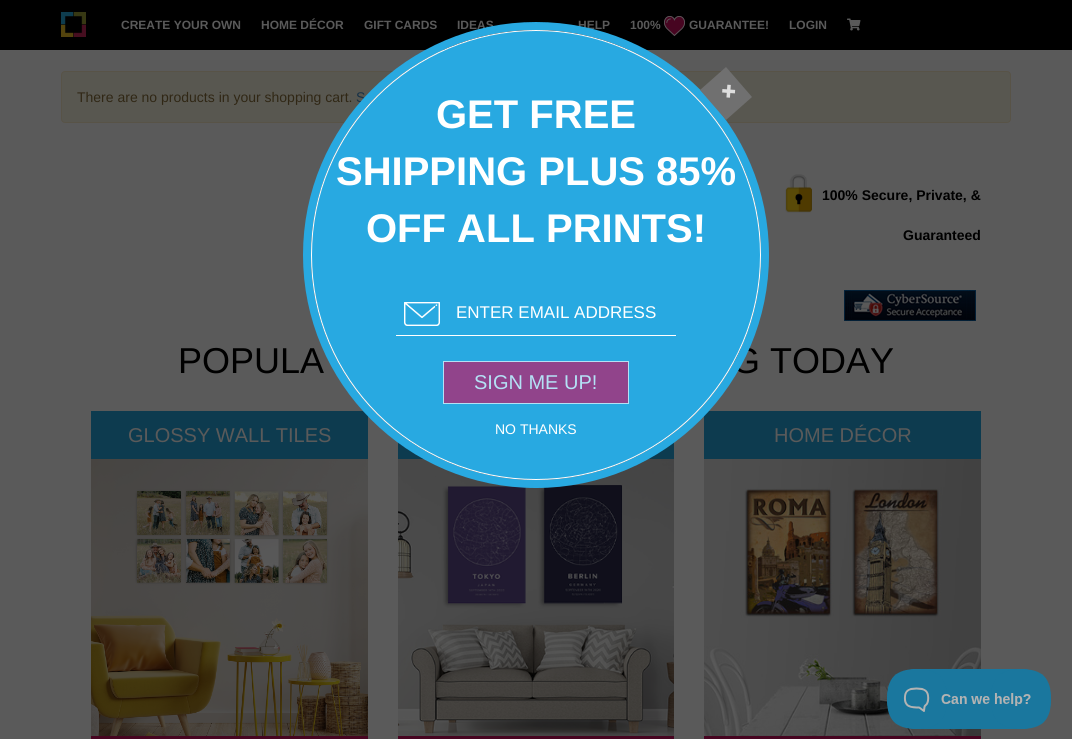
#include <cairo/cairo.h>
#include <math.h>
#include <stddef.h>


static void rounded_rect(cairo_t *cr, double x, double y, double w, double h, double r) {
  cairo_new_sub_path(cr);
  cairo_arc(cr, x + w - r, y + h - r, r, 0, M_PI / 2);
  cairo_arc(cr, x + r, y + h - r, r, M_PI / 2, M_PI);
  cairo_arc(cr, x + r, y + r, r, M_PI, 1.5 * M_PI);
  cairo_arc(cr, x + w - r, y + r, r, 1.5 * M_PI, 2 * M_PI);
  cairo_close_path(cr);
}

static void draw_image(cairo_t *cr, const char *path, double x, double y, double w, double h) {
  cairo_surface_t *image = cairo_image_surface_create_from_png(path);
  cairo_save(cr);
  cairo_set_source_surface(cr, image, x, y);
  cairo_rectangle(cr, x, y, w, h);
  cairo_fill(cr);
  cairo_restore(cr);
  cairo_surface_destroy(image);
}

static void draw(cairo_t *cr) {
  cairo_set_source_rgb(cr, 90 / 255.0, 90 / 255.0, 90 / 255.0);
  cairo_paint(cr);
  cairo_set_source_rgb(cr, 0, 0, 0);
  cairo_rectangle(cr, 0, 0, 1072, 50);
  cairo_fill(cr);
  draw_image(cr, "images/1.png", 61, 12, 25, 25);
  draw_image(cr, "images/2.png", 664, 16, 21, 20);
  draw_image(cr, "images/3.png", 847, 18, 14, 13);
  cairo_set_source_rgb(cr, 88 / 255.0, 87 / 255.0, 80 / 255.0);
  rounded_rect(cr, 61.5, 71.5, 949, 51, 3.5);
  cairo_fill_preserve(cr);
  cairo_set_source_rgb(cr, 88 / 255.0, 83 / 255.0, 71 / 255.0);
  cairo_set_line_width(cr, 1);
  cairo_stroke(cr);
  draw_image(cr, "images/4.png", 785, 174, 27, 39);
  draw_image(cr, "images/5.png", 844, 290, 132, 31);
  cairo_set_source_rgb(cr, 13 / 255.0, 59 / 255.0, 79 / 255.0);
  cairo_rectangle(cr, 91, 411, 277, 48);
  cairo_fill(cr);
  draw_image(cr, "images/6.png", 91, 459, 277, 277);
  cairo_set_source_rgb(cr, 71 / 255.0, 5 / 255.0, 33 / 255.0);
  cairo_rectangle(cr, 91, 736, 277, 3);
  cairo_fill(cr);
  cairo_set_source_rgb(cr, 13 / 255.0, 59 / 255.0, 79 / 255.0);
  cairo_rectangle(cr, 398, 431, 276, 28);
  cairo_fill(cr);
  draw_image(cr, "images/7.png", 398, 459, 276, 277);
  cairo_set_source_rgb(cr, 71 / 255.0, 5 / 255.0, 33 / 255.0);
  cairo_rectangle(cr, 398, 736, 276, 3);
  cairo_fill(cr);
  cairo_set_source_rgb(cr, 13 / 255.0, 59 / 255.0, 79 / 255.0);
  cairo_rectangle(cr, 704, 411, 277, 48);
  cairo_fill(cr);
  draw_image(cr, "images/8.png", 704, 459, 277, 277);
  cairo_set_source_rgb(cr, 71 / 255.0, 5 / 255.0, 33 / 255.0);
  cairo_rectangle(cr, 704, 736, 277, 3);
  cairo_fill(cr);
  draw_image(cr, "images/11.png", 887, 669, 164, 60);
  cairo_select_font_face(cr, "Liberation Sans", CAIRO_FONT_SLANT_NORMAL, CAIRO_FONT_WEIGHT_BOLD);
  cairo_set_font_size(cr, 12);
  cairo_set_source_rgb(cr, 90 / 255.0, 90 / 255.0, 90 / 255.0);
  cairo_move_to(cr, 121, 29);
  cairo_show_text(cr, "CREATE YOUR OWN");
  cairo_move_to(cr, 261, 29);
  cairo_show_text(cr, "HOME DÉCOR");
  cairo_move_to(cr, 364, 29);
  cairo_show_text(cr, "GIFT CARDS");
  cairo_move_to(cr, 457, 29);
  cairo_show_text(cr, "IDEAS");
  cairo_move_to(cr, 578, 29);
  cairo_show_text(cr, "HELP");
  cairo_move_to(cr, 630, 29);
  cairo_show_text(cr, "100%");
  cairo_move_to(cr, 689, 29);
  cairo_show_text(cr, "GUARANTEE!");
  cairo_move_to(cr, 789, 29);
  cairo_show_text(cr, "LOGIN");
  cairo_select_font_face(cr, "Liberation Sans", CAIRO_FONT_SLANT_NORMAL, CAIRO_FONT_WEIGHT_NORMAL);
  cairo_set_font_size(cr, 14);
  cairo_set_source_rgb(cr, 48 / 255.0, 39 / 255.0, 21 / 255.0);
  cairo_move_to(cr, 77, 102);
  cairo_show_text(cr, "There are no products in your shopping cart.");
  cairo_set_source_rgb(cr, 23 / 255.0, 49 / 255.0, 71 / 255.0);
  cairo_move_to(cr, 356, 102);
  cairo_show_text(cr, "S");
  cairo_select_font_face(cr, "Liberation Sans", CAIRO_FONT_SLANT_NORMAL, CAIRO_FONT_WEIGHT_BOLD);
  cairo_set_source_rgb(cr, 0, 0, 0);
  cairo_move_to(cr, 822, 200);
  cairo_show_text(cr, "100% Secure, Private, &");
  cairo_move_to(cr, 903, 240);
  cairo_show_text(cr, "Guaranteed");
  cairo_select_font_face(cr, "Liberation Sans", CAIRO_FONT_SLANT_NORMAL, CAIRO_FONT_WEIGHT_NORMAL);
  cairo_set_font_size(cr, 36);
  cairo_move_to(cr, 178, 373);
  cairo_show_text(cr, "POPULA");
  cairo_move_to(cr, 732, 373);
  cairo_show_text(cr, "G TODAY");
  cairo_set_font_size(cr, 20);
  cairo_set_source_rgb(cr, 90 / 255.0, 90 / 255.0, 90 / 255.0);
  cairo_move_to(cr, 128, 442);
  cairo_show_text(cr, "GLOSSY WALL TILES");
  cairo_move_to(cr, 774, 442);
  cairo_show_text(cr, "HOME DÉCOR");
  cairo_new_path(cr);
  cairo_arc(cr, 536, 255, 229, 0, 2 * M_PI);
  cairo_set_source_rgb(cr, 40 / 255.0, 169 / 255.0, 225 / 255.0);
  cairo_set_line_width(cr, 8);
  cairo_stroke(cr);
  cairo_arc(cr, 536, 255, 224.5, 0, 2 * M_PI);
  cairo_fill_preserve(cr);
  cairo_set_source_rgb(cr, 1, 1, 1);
  cairo_set_line_width(cr, 1);
  cairo_stroke(cr);
  cairo_set_source_rgb(cr, 112 / 255.0, 112 / 255.0, 112 / 255.0);
  cairo_new_path(cr);
  cairo_move_to(cr, 726, 67);
  cairo_line_to(cr, 752, 97);
  cairo_line_to(cr, 726, 120);
  cairo_line_to(cr, 700, 90);
  cairo_close_path(cr);
  cairo_fill(cr);
  draw_image(cr, "images/9.png", 722, 84, 14, 14);
  cairo_select_font_face(cr, "Liberation Sans", CAIRO_FONT_SLANT_NORMAL, CAIRO_FONT_WEIGHT_BOLD);
  cairo_set_font_size(cr, 40);
  cairo_set_source_rgb(cr, 1, 1, 1);
  cairo_move_to(cr, 436, 128);
  cairo_show_text(cr, "GET FREE");
  cairo_move_to(cr, 336, 185);
  cairo_show_text(cr, "SHIPPING PLUS 85%");
  cairo_move_to(cr, 366, 242);
  cairo_show_text(cr, "OFF ALL PRINTS!");
  draw_image(cr, "images/10.png", 404, 302, 36, 24);
  cairo_rectangle(cr, 396, 335, 280, 1);
  cairo_fill(cr);
  cairo_select_font_face(cr, "Liberation Sans", CAIRO_FONT_SLANT_NORMAL, CAIRO_FONT_WEIGHT_NORMAL);
  cairo_set_font_size(cr, 17);
  cairo_move_to(cr, 456, 318);
  cairo_show_text(cr, "ENTER EMAIL ADDRESS");
  cairo_set_source_rgb(cr, 145 / 255.0, 68 / 255.0, 139 / 255.0);
  cairo_rectangle(cr, 443.5, 361.5, 185, 42);
  cairo_fill_preserve(cr);
  cairo_set_source_rgb(cr, 180 / 255.0, 225 / 255.0, 245 / 255.0);
  cairo_stroke(cr);
  cairo_set_font_size(cr, 20);
  cairo_move_to(cr, 474, 389);
  cairo_show_text(cr, "SIGN ME UP!");
  cairo_set_font_size(cr, 14);
  cairo_set_source_rgb(cr, 1, 1, 1);
  cairo_move_to(cr, 495, 434);
  cairo_show_text(cr, "NO THANKS");
}

int main(void) {
  cairo_surface_t *surface = cairo_image_surface_create(CAIRO_FORMAT_RGB24, 1072, 739);
  cairo_t *cr = cairo_create(surface);
  cairo_font_options_t *options = cairo_font_options_create();
  cairo_font_options_set_hint_metrics(options, CAIRO_HINT_METRICS_OFF);
  cairo_font_options_set_hint_style(options, CAIRO_HINT_STYLE_NONE);
  cairo_set_font_options(cr, options);
  cairo_set_miter_limit(cr, 4);
  draw(cr);
  cairo_surface_write_to_png(surface, "out.png");
  cairo_font_options_destroy(options);
  cairo_destroy(cr);
  cairo_surface_destroy(surface);
  return 0;
}
